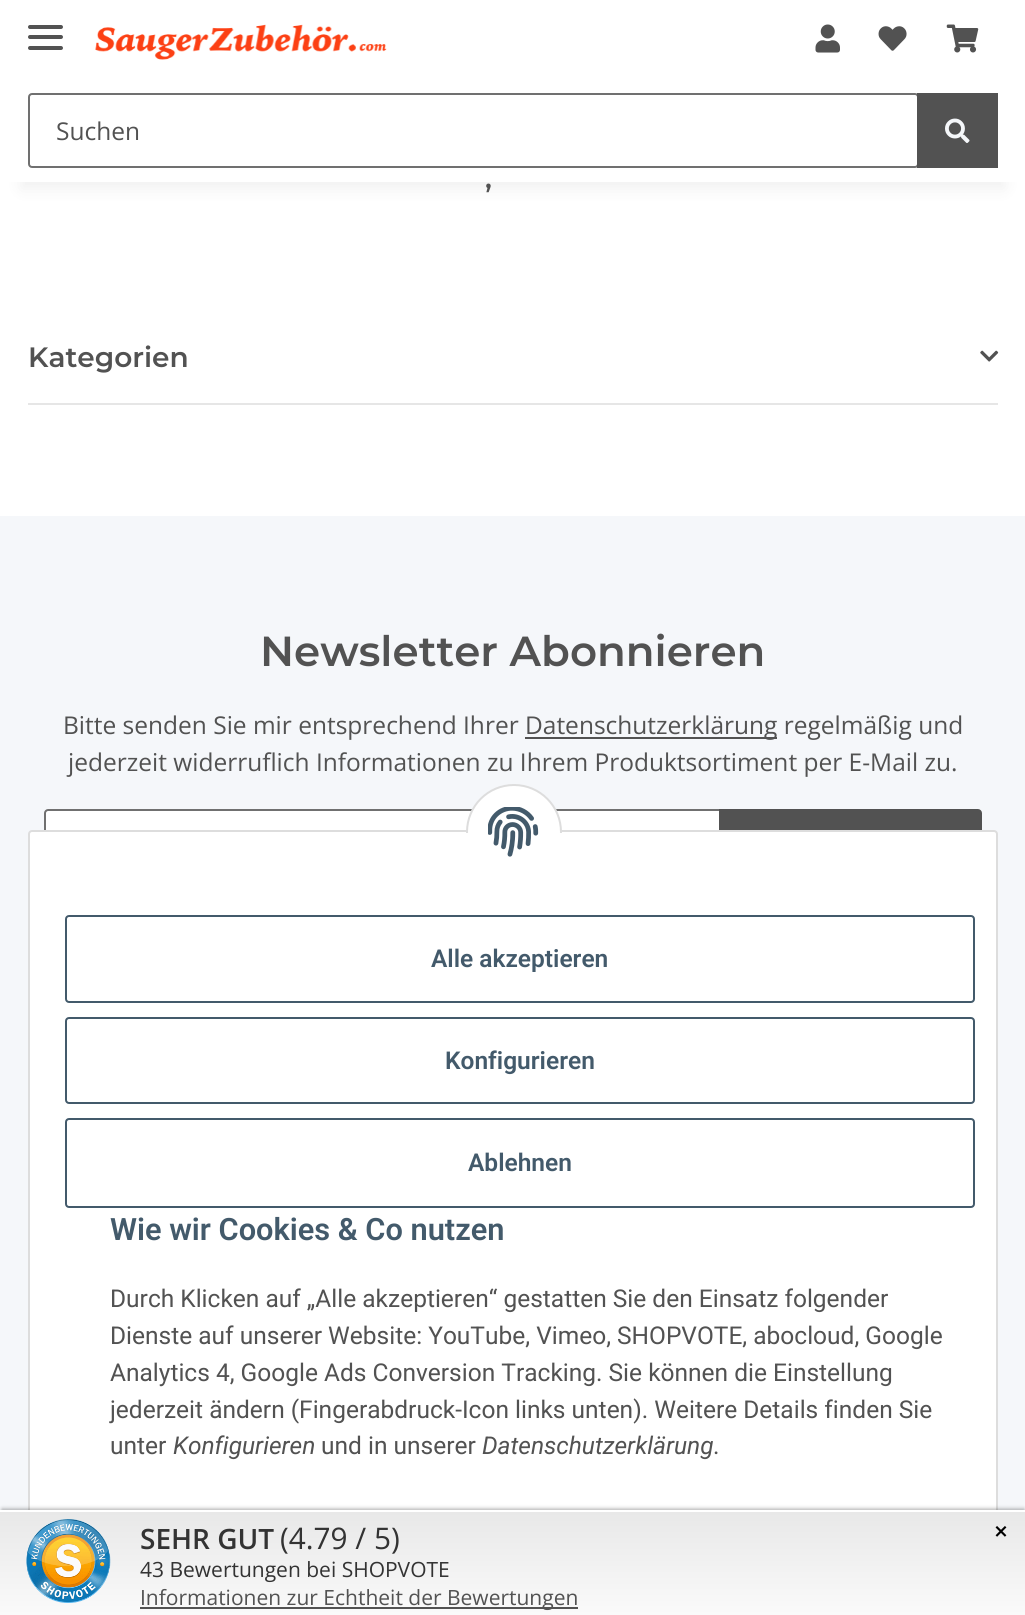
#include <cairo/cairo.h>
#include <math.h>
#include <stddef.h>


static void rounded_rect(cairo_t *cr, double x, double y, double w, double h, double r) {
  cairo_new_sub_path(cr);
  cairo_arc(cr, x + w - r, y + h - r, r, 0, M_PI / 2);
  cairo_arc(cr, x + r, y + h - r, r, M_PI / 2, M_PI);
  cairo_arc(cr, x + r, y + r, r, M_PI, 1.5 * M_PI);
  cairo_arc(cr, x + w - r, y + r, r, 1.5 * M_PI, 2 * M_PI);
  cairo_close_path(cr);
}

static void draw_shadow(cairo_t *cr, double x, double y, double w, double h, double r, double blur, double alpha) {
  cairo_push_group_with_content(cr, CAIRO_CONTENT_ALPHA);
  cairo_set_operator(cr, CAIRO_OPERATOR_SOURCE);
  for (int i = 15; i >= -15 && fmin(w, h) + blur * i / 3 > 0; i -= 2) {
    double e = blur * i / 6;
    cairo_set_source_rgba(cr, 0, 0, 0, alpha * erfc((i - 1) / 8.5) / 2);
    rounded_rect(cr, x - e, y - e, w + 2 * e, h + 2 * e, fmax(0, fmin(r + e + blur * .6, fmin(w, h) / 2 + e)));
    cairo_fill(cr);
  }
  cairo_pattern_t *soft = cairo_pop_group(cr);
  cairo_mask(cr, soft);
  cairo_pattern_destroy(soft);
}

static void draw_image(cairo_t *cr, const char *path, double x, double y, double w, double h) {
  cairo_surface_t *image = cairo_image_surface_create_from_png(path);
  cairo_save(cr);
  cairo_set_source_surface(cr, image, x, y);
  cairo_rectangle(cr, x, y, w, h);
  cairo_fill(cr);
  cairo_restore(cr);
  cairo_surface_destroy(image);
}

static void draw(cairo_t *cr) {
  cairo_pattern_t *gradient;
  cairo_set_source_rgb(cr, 245 / 255.0, 247 / 255.0, 250 / 255.0);
  cairo_paint(cr);
  cairo_set_source_rgb(cr, 1, 1, 1);
  cairo_rectangle(cr, 0, 182, 1025, 334);
  cairo_fill(cr);
  cairo_set_source_rgb(cr, 0, 0, 0);
  draw_shadow(cr, 21, 49, 984, 140, 0, 8, 0.06);
  cairo_set_source_rgb(cr, 1, 1, 1);
  cairo_rectangle(cr, 0, 0, 1025, 182);
  cairo_fill(cr);
  cairo_set_source_rgb(cr, 82 / 255.0, 82 / 255.0, 82 / 255.0);
  rounded_rect(cr, 28, 35, 35, 4, 2);
  cairo_fill(cr);
  rounded_rect(cr, 28, 25, 35, 4, 2);
  cairo_fill(cr);
  rounded_rect(cr, 28, 46, 35, 4, 2);
  cairo_fill(cr);
  draw_image(cr, "images/1.png", 95, 24, 292, 36);
  draw_image(cr, "images/2.png", 815, 24, 25, 29);
  draw_image(cr, "images/3.png", 878, 26, 29, 25);
  draw_image(cr, "images/4.png", 946, 24, 33, 29);
  rounded_rect(cr, 29, 94, 889, 73, 3);
  cairo_set_source_rgb(cr, 112 / 255.0, 112 / 255.0, 112 / 255.0);
  cairo_stroke(cr);
  cairo_set_source_rgb(cr, 82 / 255.0, 82 / 255.0, 82 / 255.0);
  cairo_rectangle(cr, 917, 93, 81, 75);
  cairo_fill(cr);
  draw_image(cr, "images/5.png", 945, 118, 25, 25);
  draw_image(cr, "images/6.png", 980, 350, 19, 12);
  cairo_set_source_rgb(cr, 230 / 255.0, 230 / 255.0, 230 / 255.0);
  cairo_rectangle(cr, 28, 403, 970, 2);
  cairo_fill(cr);
  cairo_set_source_rgb(cr, 82 / 255.0, 82 / 255.0, 82 / 255.0);
  cairo_rectangle(cr, 525, 737, 252, 2);
  cairo_fill(cr);
  cairo_set_source_rgb(cr, 1, 1, 1);
  cairo_new_path(cr);
  cairo_move_to(cr, 48, 810);
  cairo_line_to(cr, 720, 810);
  cairo_line_to(cr, 720, 883);
  cairo_line_to(cr, 48, 883);
  cairo_curve_to(cr, 46.5, 883, 45, 881.5, 45, 880);
  cairo_line_to(cr, 45, 813);
  cairo_curve_to(cr, 45, 811.5, 46.5, 810, 48, 810);
  cairo_close_path(cr);
  cairo_fill_preserve(cr);
  cairo_set_source_rgb(cr, 112 / 255.0, 112 / 255.0, 112 / 255.0);
  cairo_stroke(cr);
  cairo_set_source_rgb(cr, 82 / 255.0, 82 / 255.0, 82 / 255.0);
  cairo_new_path(cr);
  cairo_move_to(cr, 720, 810);
  cairo_line_to(cr, 978, 810);
  cairo_curve_to(cr, 979.5, 810, 981, 811.5, 981, 813);
  cairo_line_to(cr, 981, 880);
  cairo_curve_to(cr, 981, 881.5, 979.5, 883, 978, 883);
  cairo_line_to(cr, 720, 883);
  cairo_close_path(cr);
  cairo_fill_preserve(cr);
  cairo_stroke(cr);
  cairo_set_source_rgb(cr, 1, 1, 1);
  rounded_rect(cr, 29, 831, 968, 727, 3);
  cairo_fill_preserve(cr);
  cairo_set_source_rgb(cr, 221 / 255.0, 221 / 255.0, 221 / 255.0);
  cairo_stroke(cr);
  cairo_set_source_rgb(cr, 1, 1, 1);
  cairo_arc(cr, 514, 832, 47, 0, 2 * M_PI);
  cairo_fill_preserve(cr);
  cairo_set_source_rgb(cr, 221 / 255.0, 221 / 255.0, 221 / 255.0);
  cairo_stroke(cr);
  cairo_set_source_rgb(cr, 1, 1, 1);
  cairo_rectangle(cr, 466, 833, 96, 47);
  cairo_fill(cr);
  draw_image(cr, "images/7.png", 488, 807, 51, 50);
  rounded_rect(cr, 66, 916, 908, 86, 3);
  cairo_set_source_rgb(cr, 67 / 255.0, 90 / 255.0, 107 / 255.0);
  cairo_stroke(cr);
  rounded_rect(cr, 66, 1018, 908, 85, 3);
  cairo_stroke(cr);
  rounded_rect(cr, 66, 1119, 908, 88, 3);
  cairo_stroke(cr);
  cairo_set_source_rgb(cr, 0, 0, 0);
  draw_shadow(cr, 2, 1509, 1022, 101, 0, 2, 0.35);
  gradient = cairo_pattern_create_linear(513, 1512, 513, 1615);
  cairo_pattern_add_color_stop_rgba(gradient, 0, 240 / 255.0, 240 / 255.0, 240 / 255.0, 1);
  cairo_pattern_add_color_stop_rgba(gradient, 0, 232 / 255.0, 232 / 255.0, 232 / 255.0, 1);
  cairo_pattern_add_color_stop_rgba(gradient, 1, 250 / 255.0, 250 / 255.0, 250 / 255.0, 1);
  cairo_set_source(cr, gradient);
  cairo_pattern_destroy(gradient);
  cairo_rectangle(cr, 0, 1512, 1025, 103);
  cairo_fill(cr);
  cairo_set_source_rgb(cr, 1, 1, 1);
  cairo_rectangle(cr, 0, 1510, 1025, 2);
  cairo_fill(cr);
  draw_image(cr, "images/8.png", 26, 1519, 85, 84);
  cairo_set_source_rgb(cr, 82 / 255.0, 82 / 255.0, 82 / 255.0);
  cairo_rectangle(cr, 140, 1607, 438, 2);
  cairo_fill(cr);
  cairo_select_font_face(cr, "Open Sans", CAIRO_FONT_SLANT_NORMAL, CAIRO_FONT_WEIGHT_NORMAL);
  cairo_set_font_size(cr, 24.5);
  cairo_move_to(cr, 56, 140);
  cairo_show_text(cr, "Suchen");
  cairo_select_font_face(cr, "Montserrat SemiBold", CAIRO_FONT_SLANT_NORMAL, CAIRO_FONT_WEIGHT_NORMAL);
  cairo_set_font_size(cr, 28);
  cairo_move_to(cr, 485, 188);
  cairo_show_text(cr, ",");
  cairo_move_to(cr, 28, 367);
  cairo_show_text(cr, "Kategorien");
  cairo_set_font_size(cr, 42);
  cairo_move_to(cr, 260, 666);
  cairo_show_text(cr, "Newsletter Abonnieren");
  cairo_select_font_face(cr, "Open Sans", CAIRO_FONT_SLANT_NORMAL, CAIRO_FONT_WEIGHT_NORMAL);
  cairo_set_font_size(cr, 24.5);
  cairo_move_to(cr, 63, 734);
  cairo_show_text(cr, "Bitte senden Sie mir entsprechend Ihrer");
  cairo_move_to(cr, 525, 734);
  cairo_show_text(cr, "Datenschutzerklärung regelmäßig und");
  cairo_move_to(cr, 68, 771);
  cairo_show_text(cr, "jederzeit widerruflich Informationen zu Ihrem Produktsortiment per E-Mail zu.");
  cairo_select_font_face(cr, "Roboto SemiBold", CAIRO_FONT_SLANT_NORMAL, CAIRO_FONT_WEIGHT_NORMAL);
  cairo_set_source_rgb(cr, 67 / 255.0, 90 / 255.0, 107 / 255.0);
  cairo_move_to(cr, 431, 967);
  cairo_show_text(cr, "Alle akzeptieren");
  cairo_move_to(cr, 445, 1069);
  cairo_show_text(cr, "Konfigurieren");
  cairo_move_to(cr, 468, 1171);
  cairo_show_text(cr, "Ablehnen");
  cairo_set_font_size(cr, 30.75);
  cairo_move_to(cr, 110, 1240);
  cairo_show_text(cr, "Wie wir Cookies & Co nutzen");
  cairo_select_font_face(cr, "Roboto", CAIRO_FONT_SLANT_NORMAL, CAIRO_FONT_WEIGHT_NORMAL);
  cairo_set_font_size(cr, 24.5);
  cairo_set_source_rgb(cr, 82 / 255.0, 82 / 255.0, 82 / 255.0);
  cairo_move_to(cr, 110, 1307);
  cairo_show_text(cr, "Durch Klicken auf „Alle akzeptieren“ gestatten Sie den Einsatz folgender");
  cairo_move_to(cr, 110, 1344);
  cairo_show_text(cr, "Dienste auf unserer Website: YouTube, Vimeo, SHOPVOTE, abocloud, Google");
  cairo_move_to(cr, 110, 1381);
  cairo_show_text(cr, "Analytics 4, Google Ads Conversion Tracking. Sie können die Einstellung");
  cairo_move_to(cr, 110, 1418);
  cairo_show_text(cr, "jederzeit ändern (Fingerabdruck-Icon links unten). Weitere Details finden Sie");
  cairo_move_to(cr, 110, 1454);
  cairo_show_text(cr, "unter");
  cairo_select_font_face(cr, "Roboto", CAIRO_FONT_SLANT_ITALIC, CAIRO_FONT_WEIGHT_NORMAL);
  cairo_move_to(cr, 173, 1454);
  cairo_show_text(cr, "Konfigurieren");
  cairo_select_font_face(cr, "Roboto", CAIRO_FONT_SLANT_NORMAL, CAIRO_FONT_WEIGHT_NORMAL);
  cairo_move_to(cr, 321, 1454);
  cairo_show_text(cr, "und in unserer");
  cairo_select_font_face(cr, "Roboto", CAIRO_FONT_SLANT_ITALIC, CAIRO_FONT_WEIGHT_NORMAL);
  cairo_move_to(cr, 482, 1454);
  cairo_show_text(cr, "Datenschutzerklärung");
  cairo_select_font_face(cr, "Roboto", CAIRO_FONT_SLANT_NORMAL, CAIRO_FONT_WEIGHT_NORMAL);
  cairo_move_to(cr, 713, 1454);
  cairo_show_text(cr, ".");
  cairo_select_font_face(cr, "Open Sans SemiBold", CAIRO_FONT_SLANT_NORMAL, CAIRO_FONT_WEIGHT_NORMAL);
  cairo_set_font_size(cr, 28);
  cairo_set_source_rgb(cr, 51 / 255.0, 51 / 255.0, 51 / 255.0);
  cairo_move_to(cr, 140, 1549);
  cairo_show_text(cr, "SEHR GUT");
  cairo_select_font_face(cr, "Open Sans", CAIRO_FONT_SLANT_NORMAL, CAIRO_FONT_WEIGHT_NORMAL);
  cairo_set_font_size(cr, 29.75);
  cairo_move_to(cr, 280, 1549);
  cairo_show_text(cr, "(4.79 / 5)");
  cairo_set_font_size(cr, 21);
  cairo_move_to(cr, 140, 1577);
  cairo_show_text(cr, "43 Bewertungen bei SHOPVOTE");
  cairo_set_source_rgb(cr, 82 / 255.0, 82 / 255.0, 82 / 255.0);
  cairo_move_to(cr, 140, 1605);
  cairo_show_text(cr, "Informationen zur Echtheit der Bewertungen");
  cairo_select_font_face(cr, "Open Sans SemiBold", CAIRO_FONT_SLANT_NORMAL, CAIRO_FONT_WEIGHT_NORMAL);
  cairo_set_font_size(cr, 24.5);
  cairo_set_source_rgb(cr, 0, 0, 0);
  cairo_move_to(cr, 994, 1540);
  cairo_show_text(cr, "×");
}

int main(void) {
  cairo_surface_t *surface = cairo_image_surface_create(CAIRO_FORMAT_RGB24, 1025, 1615);
  cairo_t *cr = cairo_create(surface);
  cairo_font_options_t *options = cairo_font_options_create();
  cairo_font_options_set_hint_metrics(options, CAIRO_HINT_METRICS_OFF);
  cairo_font_options_set_hint_style(options, CAIRO_HINT_STYLE_NONE);
  cairo_set_font_options(cr, options);
  cairo_set_miter_limit(cr, 4);
  draw(cr);
  cairo_surface_write_to_png(surface, "out.png");
  cairo_font_options_destroy(options);
  cairo_destroy(cr);
  cairo_surface_destroy(surface);
  return 0;
}
